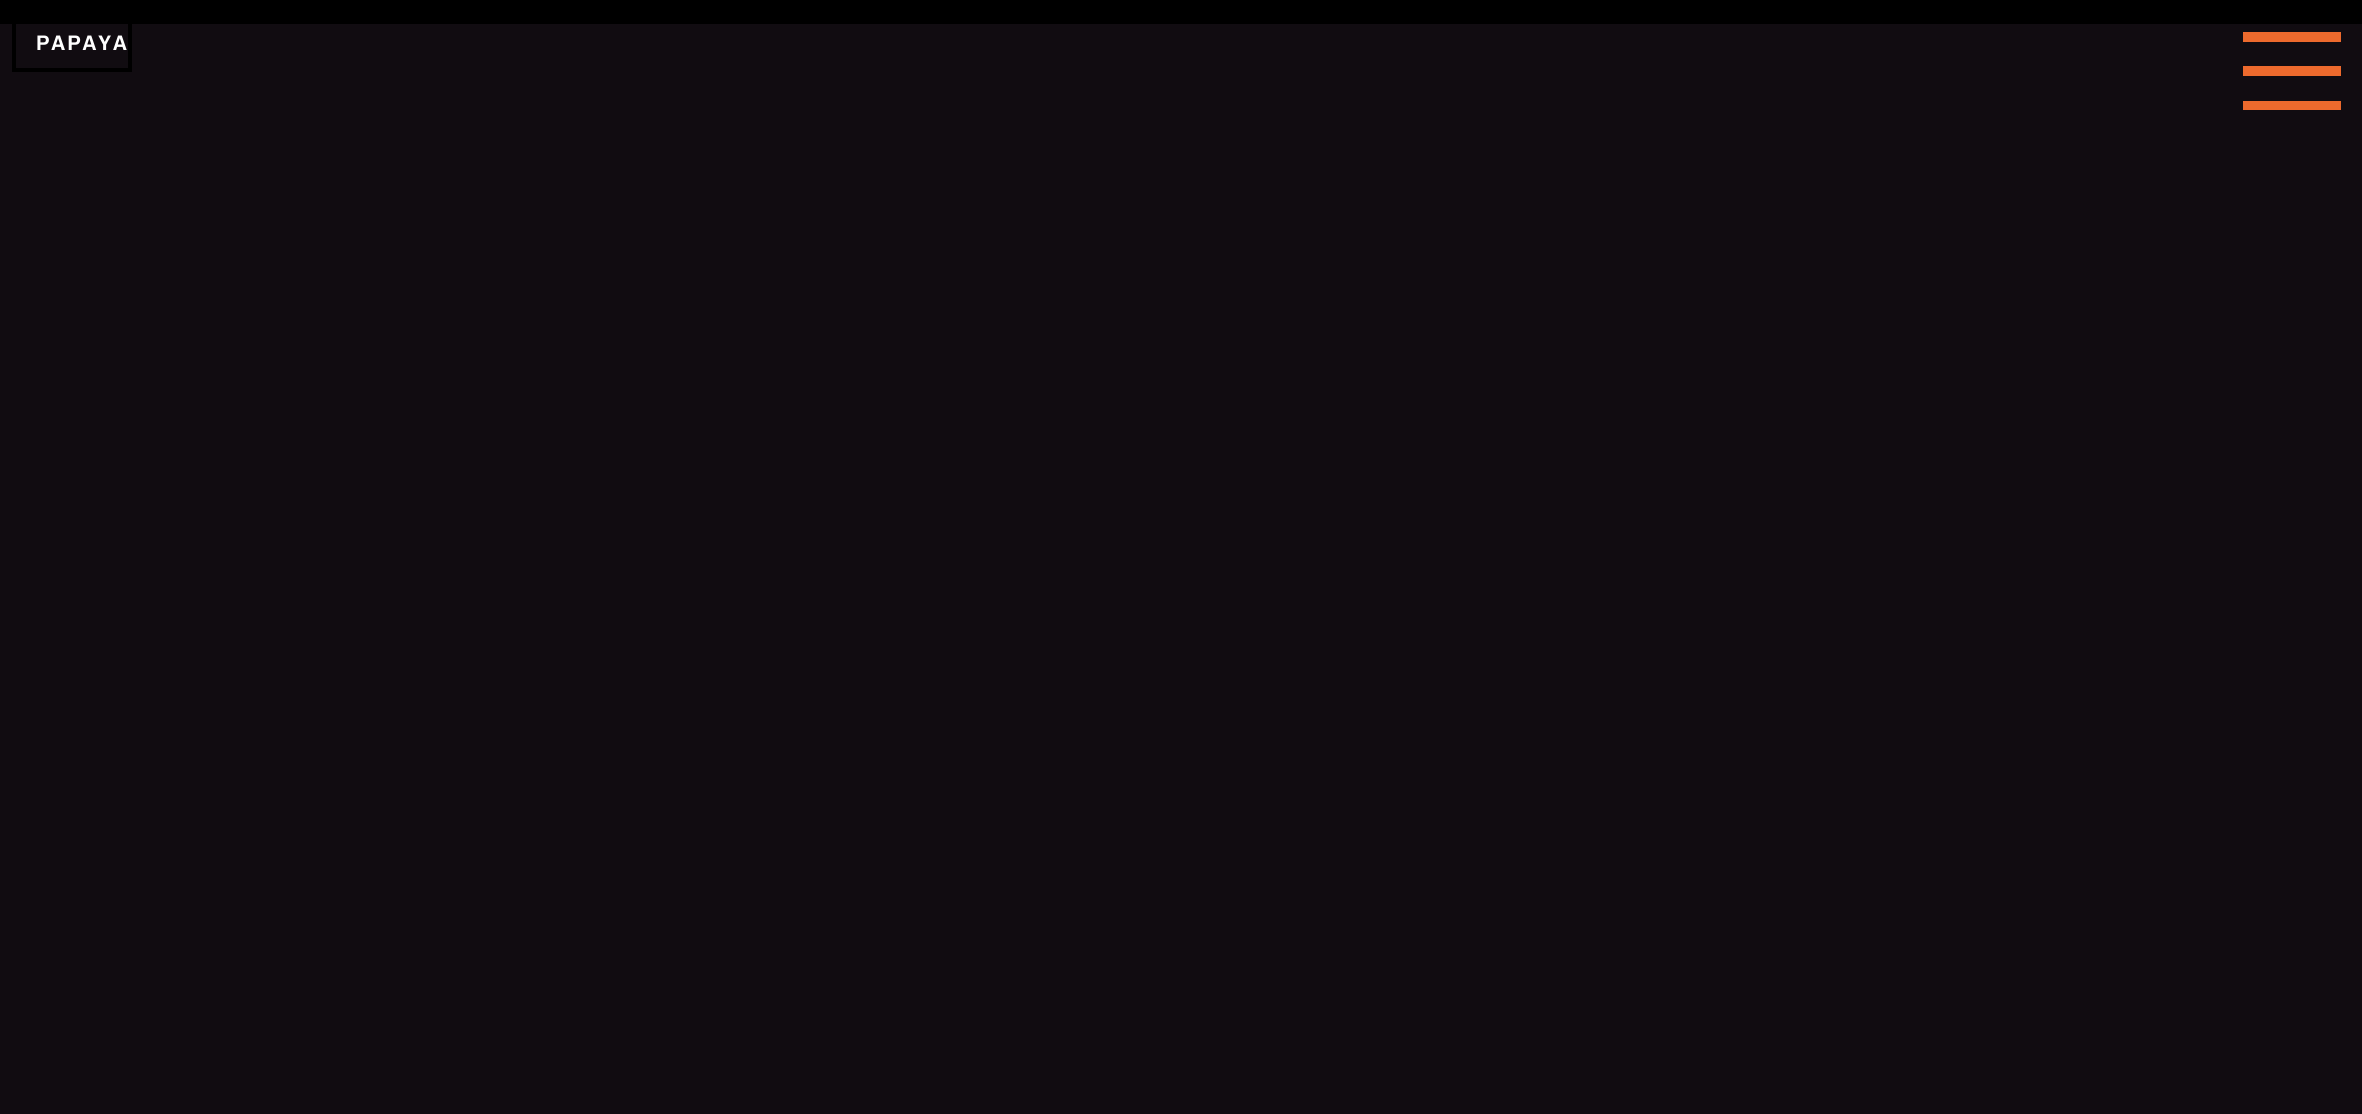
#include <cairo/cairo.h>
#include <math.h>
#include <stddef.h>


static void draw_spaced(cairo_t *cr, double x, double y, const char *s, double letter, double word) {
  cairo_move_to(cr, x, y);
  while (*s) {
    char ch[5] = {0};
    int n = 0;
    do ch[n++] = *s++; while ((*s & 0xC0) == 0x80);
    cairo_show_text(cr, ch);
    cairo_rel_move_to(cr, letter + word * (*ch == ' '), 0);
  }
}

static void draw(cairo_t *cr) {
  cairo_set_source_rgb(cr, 0, 0, 0);
  cairo_paint(cr);
  cairo_set_source_rgb(cr, 17 / 255.0, 12 / 255.0, 17 / 255.0);
  cairo_rectangle(cr, 0, 24, 2362, 1090);
  cairo_fill(cr);
  cairo_rectangle(cr, 14, 18, 116, 52);
  cairo_set_source_rgb(cr, 0, 0, 0);
  cairo_set_line_width(cr, 4);
  cairo_stroke(cr);
  cairo_set_source_rgb(cr, 237 / 255.0, 106 / 255.0, 45 / 255.0);
  cairo_rectangle(cr, 2243, 32, 98, 10);
  cairo_fill(cr);
  cairo_rectangle(cr, 2243, 66, 98, 10);
  cairo_fill(cr);
  cairo_rectangle(cr, 2243, 101, 98, 9);
  cairo_fill(cr);
  cairo_select_font_face(cr, "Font", CAIRO_FONT_SLANT_NORMAL, CAIRO_FONT_WEIGHT_BOLD);
  cairo_set_font_size(cr, 21);
  cairo_set_source_rgb(cr, 1, 1, 1);
  draw_spaced(cr, 36, 50, "PAPAYA", 2, 0);
}

int main(void) {
  cairo_surface_t *surface = cairo_image_surface_create(CAIRO_FORMAT_RGB24, 2362, 1114);
  cairo_t *cr = cairo_create(surface);
  cairo_font_options_t *options = cairo_font_options_create();
  cairo_font_options_set_hint_metrics(options, CAIRO_HINT_METRICS_OFF);
  cairo_font_options_set_hint_style(options, CAIRO_HINT_STYLE_NONE);
  cairo_set_font_options(cr, options);
  cairo_set_miter_limit(cr, 4);
  draw(cr);
  cairo_surface_write_to_png(surface, "out.png");
  cairo_font_options_destroy(options);
  cairo_destroy(cr);
  cairo_surface_destroy(surface);
  return 0;
}
